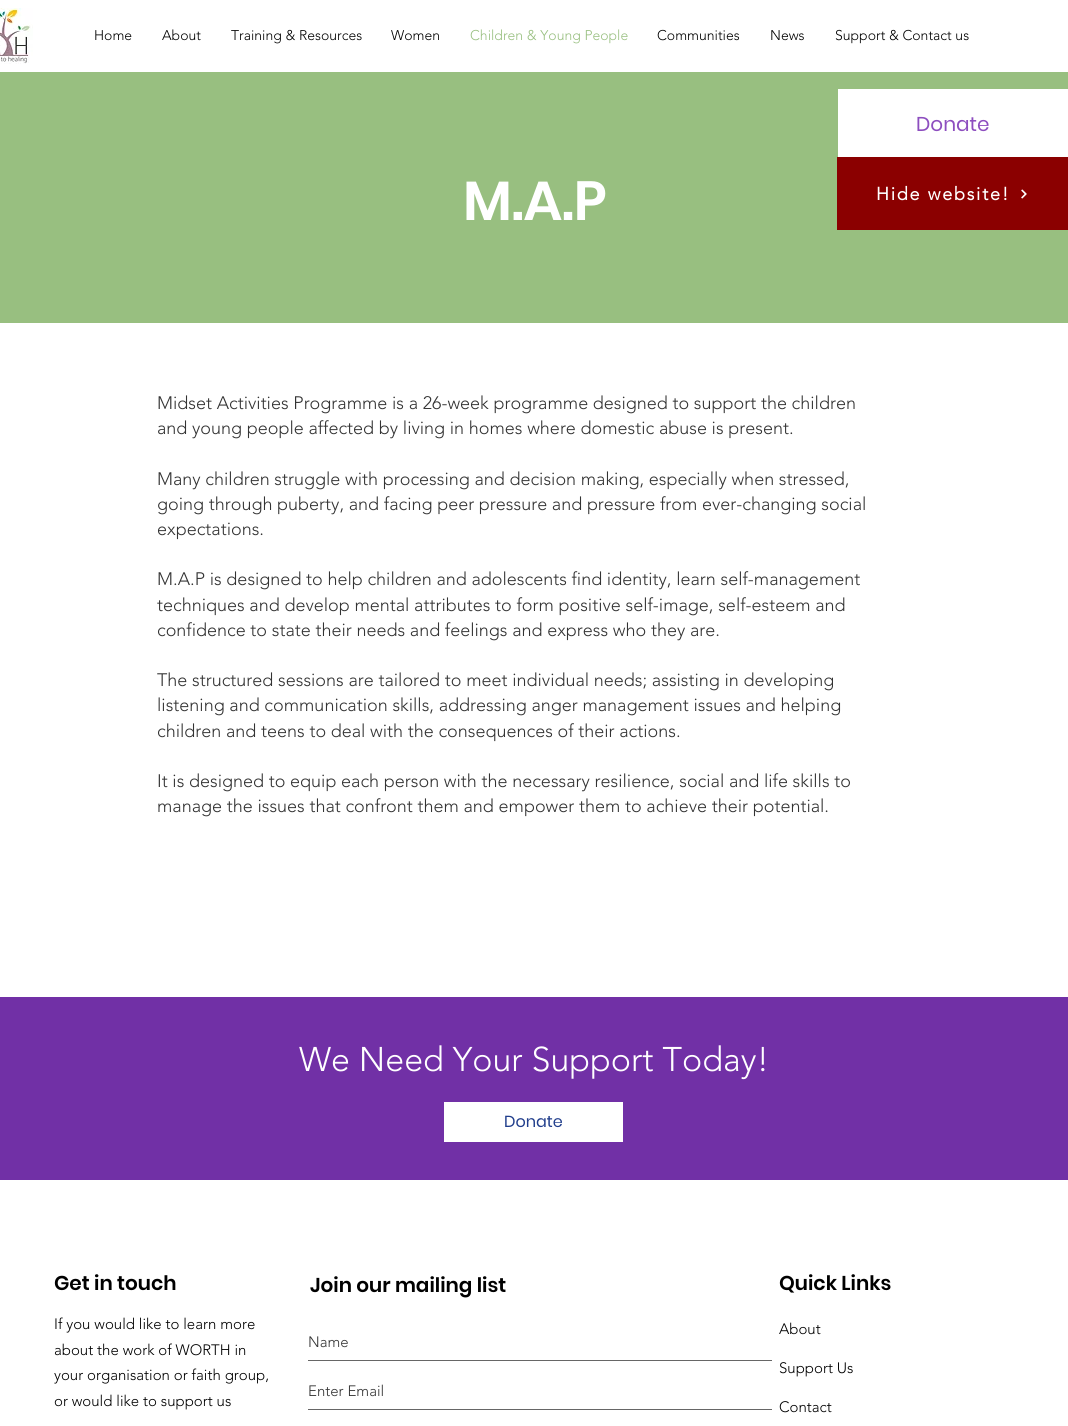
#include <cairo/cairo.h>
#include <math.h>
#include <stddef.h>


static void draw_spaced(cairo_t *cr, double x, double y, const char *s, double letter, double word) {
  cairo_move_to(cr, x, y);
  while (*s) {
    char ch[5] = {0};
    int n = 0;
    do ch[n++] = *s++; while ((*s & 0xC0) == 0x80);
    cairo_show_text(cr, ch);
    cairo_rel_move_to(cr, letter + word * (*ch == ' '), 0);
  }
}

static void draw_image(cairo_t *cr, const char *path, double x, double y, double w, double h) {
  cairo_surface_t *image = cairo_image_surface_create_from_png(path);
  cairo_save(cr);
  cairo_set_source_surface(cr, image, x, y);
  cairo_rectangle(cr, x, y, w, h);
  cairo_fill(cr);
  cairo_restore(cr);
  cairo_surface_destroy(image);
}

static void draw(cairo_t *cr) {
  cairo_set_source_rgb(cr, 1, 1, 1);
  cairo_paint(cr);
  draw_image(cr, "images/1.png", 0, 8, 33, 56);
  cairo_set_source_rgb(cr, 152 / 255.0, 191 / 255.0, 128 / 255.0);
  cairo_rectangle(cr, 0, 72, 1068, 251);
  cairo_fill(cr);
  cairo_set_source_rgb(cr, 1, 1, 1);
  cairo_rectangle(cr, 838, 89, 230, 68);
  cairo_fill(cr);
  cairo_set_source_rgb(cr, 139 / 255.0, 0, 0);
  cairo_rectangle(cr, 837, 157, 231, 73);
  cairo_fill(cr);
  draw_image(cr, "images/2.png", 1021, 189, 6, 10);
  cairo_set_source_rgb(cr, 113 / 255.0, 48 / 255.0, 166 / 255.0);
  cairo_rectangle(cr, 0, 997, 1068, 183);
  cairo_fill(cr);
  cairo_set_source_rgb(cr, 1, 1, 1);
  cairo_rectangle(cr, 444, 1102, 179, 40);
  cairo_fill(cr);
  cairo_set_source_rgb(cr, 102 / 255.0, 102 / 255.0, 102 / 255.0);
  cairo_rectangle(cr, 308, 1360, 464, 1);
  cairo_fill(cr);
  cairo_rectangle(cr, 308, 1409, 464, 1);
  cairo_fill(cr);
  cairo_select_font_face(cr, "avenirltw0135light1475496 Light", CAIRO_FONT_SLANT_NORMAL, CAIRO_FONT_WEIGHT_NORMAL);
  cairo_set_font_size(cr, 14);
  cairo_set_source_rgb(cr, 0, 0, 0);
  cairo_move_to(cr, 94, 40);
  cairo_show_text(cr, "Home");
  cairo_move_to(cr, 162, 40);
  cairo_show_text(cr, "About");
  cairo_move_to(cr, 231, 40);
  cairo_show_text(cr, "Training & Resources");
  cairo_move_to(cr, 391, 40);
  cairo_show_text(cr, "Women");
  cairo_set_source_rgb(cr, 152 / 255.0, 191 / 255.0, 128 / 255.0);
  cairo_move_to(cr, 470, 40);
  cairo_show_text(cr, "Children & Young People");
  cairo_set_source_rgb(cr, 0, 0, 0);
  cairo_move_to(cr, 657, 40);
  cairo_show_text(cr, "Communities");
  cairo_move_to(cr, 770, 40);
  cairo_show_text(cr, "News");
  cairo_move_to(cr, 835, 40);
  cairo_show_text(cr, "Support & Contact us");
  cairo_select_font_face(cr, "Poppins", CAIRO_FONT_SLANT_NORMAL, CAIRO_FONT_WEIGHT_NORMAL);
  cairo_set_font_size(cr, 20);
  cairo_set_source_rgb(cr, 141 / 255.0, 78 / 255.0, 191 / 255.0);
  cairo_move_to(cr, 916, 131);
  cairo_show_text(cr, "Donate");
  cairo_select_font_face(cr, "avenirltw0135light1475496", CAIRO_FONT_SLANT_NORMAL, CAIRO_FONT_WEIGHT_BOLD);
  cairo_set_font_size(cr, 18);
  cairo_set_source_rgb(cr, 1, 1, 1);
  draw_spaced(cr, 876, 200, "Hide website!", 1.75, 0);
  cairo_select_font_face(cr, "Poppins SemiBold", CAIRO_FONT_SLANT_NORMAL, CAIRO_FONT_WEIGHT_NORMAL);
  cairo_set_font_size(cr, 55);
  cairo_move_to(cr, 463, 220);
  cairo_show_text(cr, "M.A.P");
  cairo_select_font_face(cr, "avenirltw0135light1475496 Light", CAIRO_FONT_SLANT_NORMAL, CAIRO_FONT_WEIGHT_NORMAL);
  cairo_set_font_size(cr, 18);
  cairo_set_source_rgb(cr, 51 / 255.0, 51 / 255.0, 51 / 255.0);
  cairo_move_to(cr, 157, 409);
  cairo_show_text(cr, "Midset Activities Programme is a 26-week programme designed to support the children");
  cairo_move_to(cr, 157, 434);
  cairo_show_text(cr, "and young people affected by living in homes where domestic abuse is present.");
  cairo_move_to(cr, 157, 485);
  cairo_show_text(cr, "Many children struggle with processing and decision making, especially when stressed,");
  cairo_move_to(cr, 157, 510);
  cairo_show_text(cr, "going through puberty, and facing peer pressure and pressure from ever-changing social");
  cairo_move_to(cr, 157, 535);
  cairo_show_text(cr, "expectations.");
  cairo_move_to(cr, 157, 585);
  cairo_show_text(cr, "M.A.P is designed to help children and adolescents find identity, learn self-management");
  cairo_move_to(cr, 157, 611);
  cairo_show_text(cr, "techniques and develop mental attributes to form positive self-image, self-esteem and");
  cairo_move_to(cr, 157, 636);
  cairo_show_text(cr, "confidence to state their needs and feelings and express who they are.");
  cairo_move_to(cr, 157, 686);
  cairo_show_text(cr, "The structured sessions are tailored to meet individual needs; assisting in developing");
  cairo_move_to(cr, 157, 711);
  cairo_show_text(cr, "listening and communication skills, addressing anger management issues and helping");
  cairo_move_to(cr, 157, 737);
  cairo_show_text(cr, "children and teens to deal with the consequences of their actions.");
  cairo_move_to(cr, 157, 787);
  cairo_show_text(cr, "It is designed to equip each person with the necessary resilience, social and life skills to");
  cairo_move_to(cr, 157, 812);
  cairo_show_text(cr, "manage the issues that confront them and empower them to achieve their potential.");
  cairo_set_font_size(cr, 34);
  cairo_set_source_rgb(cr, 1, 1, 1);
  cairo_move_to(cr, 299, 1071);
  cairo_show_text(cr, "We Need Your Support Today!");
  cairo_select_font_face(cr, "Poppins", CAIRO_FONT_SLANT_NORMAL, CAIRO_FONT_WEIGHT_NORMAL);
  cairo_set_font_size(cr, 16);
  cairo_set_source_rgb(cr, 33 / 255.0, 62 / 255.0, 140 / 255.0);
  cairo_move_to(cr, 504, 1127);
  cairo_show_text(cr, "Donate");
  cairo_select_font_face(cr, "Poppins SemiBold", CAIRO_FONT_SLANT_NORMAL, CAIRO_FONT_WEIGHT_NORMAL);
  cairo_set_font_size(cr, 20);
  cairo_set_source_rgb(cr, 0, 0, 0);
  cairo_move_to(cr, 54, 1290);
  cairo_show_text(cr, "Get in touch");
  cairo_select_font_face(cr, "avenirltw0135light1475496 Light", CAIRO_FONT_SLANT_NORMAL, CAIRO_FONT_WEIGHT_NORMAL);
  cairo_set_font_size(cr, 15);
  cairo_move_to(cr, 54, 1329);
  cairo_show_text(cr, "If you would like to learn more");
  cairo_move_to(cr, 54, 1355);
  cairo_show_text(cr, "about the work of WORTH in");
  cairo_move_to(cr, 54, 1380);
  cairo_show_text(cr, "your organisation or faith group,");
  cairo_move_to(cr, 54, 1406);
  cairo_show_text(cr, "or would like to support us");
  cairo_select_font_face(cr, "Poppins SemiBold", CAIRO_FONT_SLANT_NORMAL, CAIRO_FONT_WEIGHT_NORMAL);
  cairo_set_font_size(cr, 20);
  cairo_move_to(cr, 310, 1292);
  cairo_show_text(cr, "Join our mailing list");
  cairo_select_font_face(cr, "avenirltw0135light1475496 Light", CAIRO_FONT_SLANT_NORMAL, CAIRO_FONT_WEIGHT_NORMAL);
  cairo_set_font_size(cr, 15);
  cairo_set_source_rgb(cr, 51 / 255.0, 51 / 255.0, 51 / 255.0);
  cairo_move_to(cr, 308, 1347);
  cairo_show_text(cr, "Name");
  cairo_move_to(cr, 308, 1396);
  cairo_show_text(cr, "Enter Email");
  cairo_select_font_face(cr, "Poppins SemiBold", CAIRO_FONT_SLANT_NORMAL, CAIRO_FONT_WEIGHT_NORMAL);
  cairo_set_font_size(cr, 20);
  cairo_set_source_rgb(cr, 0, 0, 0);
  cairo_move_to(cr, 779, 1290);
  cairo_show_text(cr, "Quick Links");
  cairo_select_font_face(cr, "avenirltw0135light1475496 Light", CAIRO_FONT_SLANT_NORMAL, CAIRO_FONT_WEIGHT_NORMAL);
  cairo_set_font_size(cr, 15);
  cairo_move_to(cr, 779, 1334);
  cairo_show_text(cr, "About");
  cairo_move_to(cr, 779, 1373);
  cairo_show_text(cr, "Support Us");
  cairo_move_to(cr, 779, 1412);
  cairo_show_text(cr, "Contact");
}

int main(void) {
  cairo_surface_t *surface = cairo_image_surface_create(CAIRO_FORMAT_RGB24, 1068, 1426);
  cairo_t *cr = cairo_create(surface);
  cairo_font_options_t *options = cairo_font_options_create();
  cairo_font_options_set_hint_metrics(options, CAIRO_HINT_METRICS_OFF);
  cairo_font_options_set_hint_style(options, CAIRO_HINT_STYLE_NONE);
  cairo_set_font_options(cr, options);
  cairo_set_miter_limit(cr, 4);
  draw(cr);
  cairo_surface_write_to_png(surface, "out.png");
  cairo_font_options_destroy(options);
  cairo_destroy(cr);
  cairo_surface_destroy(surface);
  return 0;
}
